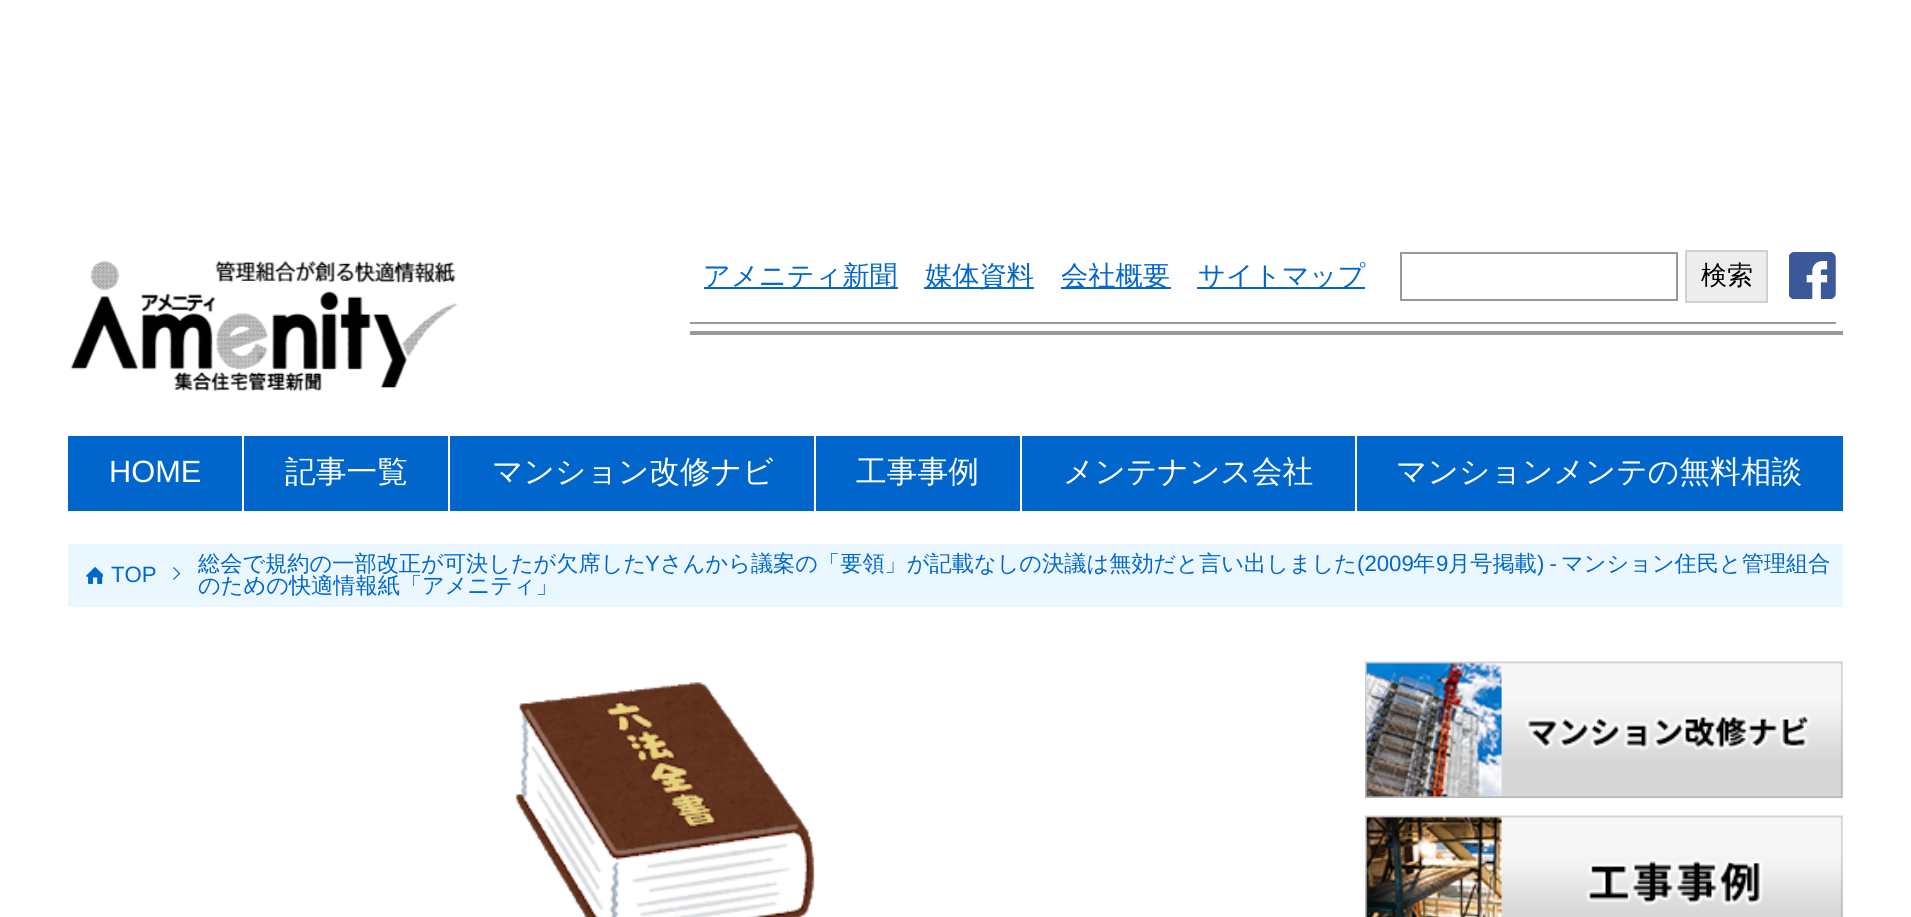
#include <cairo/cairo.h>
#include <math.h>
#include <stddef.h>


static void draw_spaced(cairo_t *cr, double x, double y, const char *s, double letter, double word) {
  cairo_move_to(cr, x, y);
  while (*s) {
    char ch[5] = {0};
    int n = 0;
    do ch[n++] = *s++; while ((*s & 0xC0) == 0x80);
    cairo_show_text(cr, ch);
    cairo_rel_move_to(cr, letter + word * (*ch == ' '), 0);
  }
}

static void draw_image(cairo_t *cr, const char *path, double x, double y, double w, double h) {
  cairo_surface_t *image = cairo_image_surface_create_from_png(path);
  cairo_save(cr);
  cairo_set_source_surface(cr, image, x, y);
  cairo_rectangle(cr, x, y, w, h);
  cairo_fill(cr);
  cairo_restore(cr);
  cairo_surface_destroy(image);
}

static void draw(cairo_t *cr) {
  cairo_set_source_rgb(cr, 1, 1, 1);
  cairo_paint(cr);
  draw_image(cr, "images/1.png", 70, 261, 388, 130);
  cairo_set_source_rgb(cr, 153 / 255.0, 153 / 255.0, 153 / 255.0);
  cairo_rectangle(cr, 690, 331, 1153, 4);
  cairo_fill(cr);
  cairo_set_source_rgb(cr, 0, 102 / 255.0, 203 / 255.0);
  cairo_rectangle(cr, 704, 287, 194, 2);
  cairo_fill(cr);
  cairo_rectangle(cr, 924, 287, 110, 2);
  cairo_fill(cr);
  cairo_rectangle(cr, 1061, 287, 110, 2);
  cairo_fill(cr);
  cairo_rectangle(cr, 1197, 287, 168, 2);
  cairo_fill(cr);
  cairo_rectangle(cr, 1401, 253, 276, 47);
  cairo_set_source_rgb(cr, 153 / 255.0, 153 / 255.0, 153 / 255.0);
  cairo_stroke(cr);
  cairo_set_source_rgb(cr, 237 / 255.0, 237 / 255.0, 237 / 255.0);
  cairo_rectangle(cr, 1686, 251, 81, 51);
  cairo_fill_preserve(cr);
  cairo_set_source_rgb(cr, 209 / 255.0, 209 / 255.0, 209 / 255.0);
  cairo_stroke(cr);
  draw_image(cr, "images/2.png", 1789, 252, 47, 47);
  cairo_set_source_rgb(cr, 153 / 255.0, 153 / 255.0, 153 / 255.0);
  cairo_rectangle(cr, 690, 322, 1146, 2);
  cairo_fill(cr);
  cairo_set_source_rgb(cr, 0, 102 / 255.0, 203 / 255.0);
  cairo_rectangle(cr, 68, 436, 1775, 75);
  cairo_fill(cr);
  cairo_set_source_rgb(cr, 1, 1, 1);
  cairo_rectangle(cr, 242, 436, 2, 75);
  cairo_fill(cr);
  cairo_rectangle(cr, 448, 436, 2, 75);
  cairo_fill(cr);
  cairo_rectangle(cr, 814, 436, 2, 75);
  cairo_fill(cr);
  cairo_rectangle(cr, 1020, 436, 2, 75);
  cairo_fill(cr);
  cairo_rectangle(cr, 1355, 436, 2, 75);
  cairo_fill(cr);
  cairo_set_source_rgb(cr, 235 / 255.0, 247 / 255.0, 1);
  cairo_rectangle(cr, 68, 544, 1775, 63);
  cairo_fill(cr);
  draw_image(cr, "images/3.png", 86, 567, 17, 17);
  cairo_new_path(cr);
  cairo_move_to(cr, 173.5, 567.5);
  cairo_line_to(cr, 179.5, 573.5);
  cairo_line_to(cr, 173.5, 579.5);
  cairo_set_source_rgb(cr, 0, 102 / 255.0, 203 / 255.0);
  cairo_set_line_width(cr, 1.2);
  cairo_stroke(cr);
  draw_image(cr, "images/4.png", 515, 682, 300, 235);
  draw_image(cr, "images/5.png", 1365, 661, 478, 137);
  draw_image(cr, "images/6.png", 1365, 815, 478, 102);
  cairo_select_font_face(cr, "WenQuanYi Zen Hei Medium", CAIRO_FONT_SLANT_NORMAL, CAIRO_FONT_WEIGHT_NORMAL);
  cairo_set_font_size(cr, 27.25);
  cairo_move_to(cr, 703, 285);
  cairo_show_text(cr, "アメニティ新聞");
  cairo_move_to(cr, 925, 285);
  cairo_show_text(cr, "媒体資料");
  cairo_move_to(cr, 1061, 285);
  cairo_show_text(cr, "会社概要");
  cairo_move_to(cr, 1198, 285);
  cairo_show_text(cr, "サイトマップ");
  cairo_set_font_size(cr, 26);
  cairo_set_source_rgb(cr, 0, 0, 0);
  cairo_move_to(cr, 1701, 284);
  cairo_show_text(cr, "検索");
  cairo_select_font_face(cr, "Liberation Sans", CAIRO_FONT_SLANT_NORMAL, CAIRO_FONT_WEIGHT_NORMAL);
  cairo_set_font_size(cr, 30.75);
  cairo_set_source_rgb(cr, 1, 1, 1);
  cairo_move_to(cr, 109, 482);
  cairo_show_text(cr, "HOME");
  cairo_select_font_face(cr, "WenQuanYi Zen Hei Medium", CAIRO_FONT_SLANT_NORMAL, CAIRO_FONT_WEIGHT_NORMAL);
  cairo_move_to(cr, 285, 482);
  cairo_show_text(cr, "記事一覧");
  cairo_move_to(cr, 492, 482);
  cairo_show_text(cr, "マンション改修ナビ");
  cairo_move_to(cr, 856, 482);
  cairo_show_text(cr, "工事事例");
  cairo_move_to(cr, 1063, 482);
  cairo_show_text(cr, "メンテナンス会社");
  cairo_move_to(cr, 1396, 482);
  cairo_show_text(cr, "マンションメンテの無料相談");
  cairo_select_font_face(cr, "Liberation Sans", CAIRO_FONT_SLANT_NORMAL, CAIRO_FONT_WEIGHT_NORMAL);
  cairo_set_font_size(cr, 22.2);
  cairo_set_source_rgb(cr, 0, 102 / 255.0, 203 / 255.0);
  cairo_move_to(cr, 111, 582);
  cairo_show_text(cr, "TOP");
  cairo_select_font_face(cr, "WenQuanYi Zen Hei Medium", CAIRO_FONT_SLANT_NORMAL, CAIRO_FONT_WEIGHT_NORMAL);
  cairo_move_to(cr, 198, 571);
  cairo_show_text(cr, "総会で規約の一部改正が可決したが欠席した");
  cairo_select_font_face(cr, "Liberation Sans", CAIRO_FONT_SLANT_NORMAL, CAIRO_FONT_WEIGHT_NORMAL);
  cairo_move_to(cr, 645, 571);
  cairo_show_text(cr, "Y");
  cairo_select_font_face(cr, "WenQuanYi Zen Hei Medium", CAIRO_FONT_SLANT_NORMAL, CAIRO_FONT_WEIGHT_NORMAL);
  cairo_move_to(cr, 660, 571);
  cairo_show_text(cr, "さんから議案の「要領」が記載なしの決議は無効だと言い出しました");
  cairo_select_font_face(cr, "Liberation Sans", CAIRO_FONT_SLANT_NORMAL, CAIRO_FONT_WEIGHT_NORMAL);
  cairo_move_to(cr, 1357, 571);
  cairo_show_text(cr, "(2009");
  cairo_select_font_face(cr, "WenQuanYi Zen Hei Medium", CAIRO_FONT_SLANT_NORMAL, CAIRO_FONT_WEIGHT_NORMAL);
  cairo_move_to(cr, 1413, 571);
  cairo_show_text(cr, "年");
  cairo_select_font_face(cr, "Liberation Sans", CAIRO_FONT_SLANT_NORMAL, CAIRO_FONT_WEIGHT_NORMAL);
  cairo_move_to(cr, 1436, 571);
  cairo_show_text(cr, "9");
  cairo_select_font_face(cr, "WenQuanYi Zen Hei Medium", CAIRO_FONT_SLANT_NORMAL, CAIRO_FONT_WEIGHT_NORMAL);
  cairo_move_to(cr, 1448, 571);
  cairo_show_text(cr, "月号掲載");
  cairo_select_font_face(cr, "Liberation Sans", CAIRO_FONT_SLANT_NORMAL, CAIRO_FONT_WEIGHT_NORMAL);
  draw_spaced(cr, 1537, 571, ") -", 0, -1);
  cairo_select_font_face(cr, "WenQuanYi Zen Hei Medium", CAIRO_FONT_SLANT_NORMAL, CAIRO_FONT_WEIGHT_NORMAL);
  cairo_move_to(cr, 1561, 571);
  cairo_show_text(cr, "マンション住民と管理組合");
  cairo_move_to(cr, 198, 593);
  cairo_show_text(cr, "のための快適情報紙「アメニティ」");
}

int main(void) {
  cairo_surface_t *surface = cairo_image_surface_create(CAIRO_FORMAT_RGB24, 1911, 917);
  cairo_t *cr = cairo_create(surface);
  cairo_font_options_t *options = cairo_font_options_create();
  cairo_font_options_set_hint_metrics(options, CAIRO_HINT_METRICS_OFF);
  cairo_font_options_set_hint_style(options, CAIRO_HINT_STYLE_NONE);
  cairo_set_font_options(cr, options);
  cairo_set_miter_limit(cr, 4);
  draw(cr);
  cairo_surface_write_to_png(surface, "out.png");
  cairo_font_options_destroy(options);
  cairo_destroy(cr);
  cairo_surface_destroy(surface);
  return 0;
}
